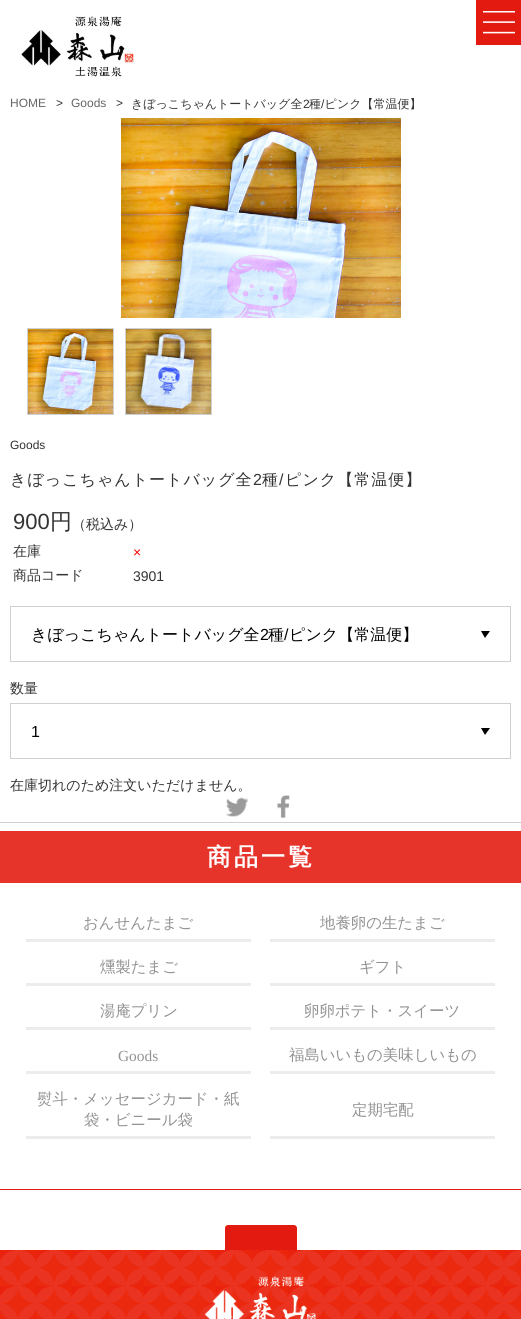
#include <cairo/cairo.h>
#include <math.h>
#include <stddef.h>


static void draw_spaced(cairo_t *cr, double x, double y, const char *s, double letter, double word) {
  cairo_move_to(cr, x, y);
  while (*s) {
    char ch[5] = {0};
    int n = 0;
    do ch[n++] = *s++; while ((*s & 0xC0) == 0x80);
    cairo_show_text(cr, ch);
    cairo_rel_move_to(cr, letter + word * (*ch == ' '), 0);
  }
}

static void draw_image(cairo_t *cr, const char *path, double x, double y, double w, double h) {
  cairo_surface_t *image = cairo_image_surface_create_from_png(path);
  cairo_save(cr);
  cairo_set_source_surface(cr, image, x, y);
  cairo_rectangle(cr, x, y, w, h);
  cairo_fill(cr);
  cairo_restore(cr);
  cairo_surface_destroy(image);
}

static void draw(cairo_t *cr) {
  cairo_set_source_rgb(cr, 1, 1, 1);
  cairo_paint(cr);
  draw_image(cr, "images/1.png", 21, 16, 113, 61);
  cairo_set_source_rgb(cr, 227 / 255.0, 26 / 255.0, 15 / 255.0);
  cairo_rectangle(cr, 476, 0, 45, 45);
  cairo_fill(cr);
  draw_image(cr, "images/2.png", 483, 11, 32, 23);
  draw_image(cr, "images/3.png", 121, 118, 280, 200);
  cairo_rectangle(cr, 27.5, 328.5, 86, 86);
  cairo_set_source_rgb(cr, 208 / 255.0, 208 / 255.0, 208 / 255.0);
  cairo_set_line_width(cr, 1);
  cairo_stroke(cr);
  draw_image(cr, "images/4.png", 28, 329, 85, 85);
  cairo_rectangle(cr, 125.5, 328.5, 86, 86);
  cairo_stroke(cr);
  draw_image(cr, "images/5.png", 126, 329, 85, 85);
  cairo_rectangle(cr, 10.5, 606.5, 500, 55);
  cairo_stroke(cr);
  cairo_set_source_rgb(cr, 0, 0, 0);
  cairo_new_path(cr);
  cairo_move_to(cr, 481, 631);
  cairo_line_to(cr, 490, 631);
  cairo_line_to(cr, 485, 638);
  cairo_close_path(cr);
  cairo_fill(cr);
  cairo_rectangle(cr, 10.5, 703.5, 500, 55);
  cairo_set_source_rgb(cr, 208 / 255.0, 208 / 255.0, 208 / 255.0);
  cairo_stroke(cr);
  cairo_set_source_rgb(cr, 0, 0, 0);
  cairo_new_path(cr);
  cairo_move_to(cr, 481, 728);
  cairo_line_to(cr, 490, 728);
  cairo_line_to(cr, 485, 735);
  cairo_close_path(cr);
  cairo_fill(cr);
  cairo_set_source_rgb(cr, 208 / 255.0, 208 / 255.0, 208 / 255.0);
  cairo_rectangle(cr, 0, 822, 521, 1);
  cairo_fill(cr);
  draw_image(cr, "images/6.png", 226, 797, 22, 20);
  draw_image(cr, "images/7.png", 277, 795, 13, 23);
  cairo_set_source_rgb(cr, 230 / 255.0, 52 / 255.0, 42 / 255.0);
  cairo_rectangle(cr, 0, 831, 521, 52);
  cairo_fill(cr);
  cairo_set_source_rgb(cr, 236 / 255.0, 236 / 255.0, 236 / 255.0);
  cairo_rectangle(cr, 26, 939, 225, 3);
  cairo_fill(cr);
  cairo_rectangle(cr, 270, 939, 225, 3);
  cairo_fill(cr);
  cairo_rectangle(cr, 26, 983, 225, 3);
  cairo_fill(cr);
  cairo_rectangle(cr, 270, 983, 225, 3);
  cairo_fill(cr);
  cairo_rectangle(cr, 26, 1027, 225, 3);
  cairo_fill(cr);
  cairo_rectangle(cr, 270, 1027, 225, 3);
  cairo_fill(cr);
  cairo_rectangle(cr, 26, 1071, 225, 3);
  cairo_fill(cr);
  cairo_rectangle(cr, 270, 1071, 225, 3);
  cairo_fill(cr);
  cairo_rectangle(cr, 26, 1136, 225, 3);
  cairo_fill(cr);
  cairo_rectangle(cr, 270, 1136, 225, 3);
  cairo_fill(cr);
  cairo_set_source_rgb(cr, 227 / 255.0, 26 / 255.0, 15 / 255.0);
  cairo_rectangle(cr, 0, 1189, 521, 1);
  cairo_fill(cr);
  cairo_new_path(cr);
  cairo_move_to(cr, 228, 1225);
  cairo_line_to(cr, 294, 1225);
  cairo_curve_to(cr, 295.5, 1225, 297, 1226.5, 297, 1228);
  cairo_line_to(cr, 297, 1250);
  cairo_line_to(cr, 225, 1250);
  cairo_line_to(cr, 225, 1228);
  cairo_curve_to(cr, 225, 1226.5, 226.5, 1225, 228, 1225);
  cairo_close_path(cr);
  cairo_fill(cr);
  draw_image(cr, "images/8.png", 0, 1250, 521, 69);
  draw_image(cr, "images/9.png", 204, 1276, 112, 43);
  cairo_select_font_face(cr, "Liberation Sans", CAIRO_FONT_SLANT_NORMAL, CAIRO_FONT_WEIGHT_NORMAL);
  cairo_set_font_size(cr, 12);
  cairo_set_source_rgb(cr, 102 / 255.0, 102 / 255.0, 102 / 255.0);
  cairo_move_to(cr, 10, 107);
  cairo_show_text(cr, "HOME");
  cairo_set_source_rgb(cr, 51 / 255.0, 51 / 255.0, 51 / 255.0);
  cairo_move_to(cr, 56, 107);
  cairo_show_text(cr, ">");
  cairo_set_source_rgb(cr, 102 / 255.0, 102 / 255.0, 102 / 255.0);
  cairo_move_to(cr, 71, 107);
  cairo_show_text(cr, "Goods");
  cairo_set_source_rgb(cr, 51 / 255.0, 51 / 255.0, 51 / 255.0);
  cairo_move_to(cr, 116, 107);
  cairo_show_text(cr, ">");
  cairo_select_font_face(cr, "WenQuanYi Zen Hei Medium", CAIRO_FONT_SLANT_NORMAL, CAIRO_FONT_WEIGHT_NORMAL);
  cairo_move_to(cr, 131, 108);
  cairo_show_text(cr, "きぼっこちゃんトートバッグ全");
  cairo_select_font_face(cr, "Liberation Sans", CAIRO_FONT_SLANT_NORMAL, CAIRO_FONT_WEIGHT_NORMAL);
  cairo_move_to(cr, 303, 108);
  cairo_show_text(cr, "2");
  cairo_select_font_face(cr, "WenQuanYi Zen Hei Medium", CAIRO_FONT_SLANT_NORMAL, CAIRO_FONT_WEIGHT_NORMAL);
  cairo_move_to(cr, 309, 108);
  cairo_show_text(cr, "種 ピンク【常温便】");
  cairo_select_font_face(cr, "Liberation Sans", CAIRO_FONT_SLANT_NORMAL, CAIRO_FONT_WEIGHT_NORMAL);
  cairo_move_to(cr, 321, 108);
  cairo_show_text(cr, "/");
  cairo_move_to(cr, 10, 449);
  cairo_show_text(cr, "Goods");
  cairo_select_font_face(cr, "WenQuanYi Zen Hei Medium", CAIRO_FONT_SLANT_NORMAL, CAIRO_FONT_WEIGHT_NORMAL);
  cairo_set_font_size(cr, 16);
  draw_spaced(cr, 10, 485, "きぼっこちゃんトートバッグ全", 1, 0);
  cairo_select_font_face(cr, "Liberation Sans", CAIRO_FONT_SLANT_NORMAL, CAIRO_FONT_WEIGHT_NORMAL);
  draw_spaced(cr, 253, 485, "2", 1, 0);
  cairo_select_font_face(cr, "WenQuanYi Zen Hei Medium", CAIRO_FONT_SLANT_NORMAL, CAIRO_FONT_WEIGHT_NORMAL);
  draw_spaced(cr, 262, 485, "種", 1, 0);
  cairo_select_font_face(cr, "Liberation Sans", CAIRO_FONT_SLANT_NORMAL, CAIRO_FONT_WEIGHT_NORMAL);
  draw_spaced(cr, 279, 485, "/", 1, 0);
  cairo_select_font_face(cr, "WenQuanYi Zen Hei Medium", CAIRO_FONT_SLANT_NORMAL, CAIRO_FONT_WEIGHT_NORMAL);
  draw_spaced(cr, 285, 485, "ピンク【常温便】", 1, 0);
  cairo_select_font_face(cr, "Liberation Sans", CAIRO_FONT_SLANT_NORMAL, CAIRO_FONT_WEIGHT_NORMAL);
  cairo_set_font_size(cr, 22);
  cairo_move_to(cr, 13, 529);
  cairo_show_text(cr, "900");
  cairo_select_font_face(cr, "WenQuanYi Zen Hei Medium", CAIRO_FONT_SLANT_NORMAL, CAIRO_FONT_WEIGHT_NORMAL);
  cairo_move_to(cr, 50, 529);
  cairo_show_text(cr, "円");
  cairo_set_font_size(cr, 14);
  cairo_move_to(cr, 72, 529);
  cairo_show_text(cr, "（税込み）");
  cairo_move_to(cr, 13, 556);
  cairo_show_text(cr, "在庫");
  cairo_select_font_face(cr, "Liberation Sans", CAIRO_FONT_SLANT_NORMAL, CAIRO_FONT_WEIGHT_NORMAL);
  cairo_set_source_rgb(cr, 1, 0, 0);
  cairo_move_to(cr, 133, 557);
  cairo_show_text(cr, "×");
  cairo_select_font_face(cr, "WenQuanYi Zen Hei Medium", CAIRO_FONT_SLANT_NORMAL, CAIRO_FONT_WEIGHT_NORMAL);
  cairo_set_source_rgb(cr, 51 / 255.0, 51 / 255.0, 51 / 255.0);
  cairo_move_to(cr, 13, 580);
  cairo_show_text(cr, "商品コード");
  cairo_select_font_face(cr, "Liberation Sans", CAIRO_FONT_SLANT_NORMAL, CAIRO_FONT_WEIGHT_NORMAL);
  cairo_move_to(cr, 133, 581);
  cairo_show_text(cr, "3901");
  cairo_select_font_face(cr, "WenQuanYi Zen Hei Medium", CAIRO_FONT_SLANT_NORMAL, CAIRO_FONT_WEIGHT_NORMAL);
  cairo_set_font_size(cr, 16);
  cairo_set_source_rgb(cr, 0, 0, 0);
  cairo_move_to(cr, 31, 640);
  cairo_show_text(cr, "きぼっこちゃんトートバッグ全");
  cairo_select_font_face(cr, "Liberation Sans", CAIRO_FONT_SLANT_NORMAL, CAIRO_FONT_WEIGHT_NORMAL);
  cairo_move_to(cr, 260, 640);
  cairo_show_text(cr, "2");
  cairo_select_font_face(cr, "WenQuanYi Zen Hei Medium", CAIRO_FONT_SLANT_NORMAL, CAIRO_FONT_WEIGHT_NORMAL);
  cairo_move_to(cr, 268, 640);
  cairo_show_text(cr, "種");
  cairo_select_font_face(cr, "Liberation Sans", CAIRO_FONT_SLANT_NORMAL, CAIRO_FONT_WEIGHT_NORMAL);
  cairo_move_to(cr, 284, 640);
  cairo_show_text(cr, "/");
  cairo_select_font_face(cr, "WenQuanYi Zen Hei Medium", CAIRO_FONT_SLANT_NORMAL, CAIRO_FONT_WEIGHT_NORMAL);
  cairo_move_to(cr, 289, 640);
  cairo_show_text(cr, "ピンク【常温便】");
  cairo_set_font_size(cr, 14);
  cairo_set_source_rgb(cr, 51 / 255.0, 51 / 255.0, 51 / 255.0);
  cairo_move_to(cr, 10, 693);
  cairo_show_text(cr, "数量");
  cairo_select_font_face(cr, "Liberation Sans", CAIRO_FONT_SLANT_NORMAL, CAIRO_FONT_WEIGHT_NORMAL);
  cairo_set_font_size(cr, 16);
  cairo_set_source_rgb(cr, 0, 0, 0);
  cairo_move_to(cr, 31, 737);
  cairo_show_text(cr, "1");
  cairo_select_font_face(cr, "WenQuanYi Zen Hei Medium", CAIRO_FONT_SLANT_NORMAL, CAIRO_FONT_WEIGHT_NORMAL);
  cairo_set_font_size(cr, 14);
  cairo_set_source_rgb(cr, 51 / 255.0, 51 / 255.0, 51 / 255.0);
  cairo_move_to(cr, 10, 790);
  cairo_show_text(cr, "在庫切れのため注文いただけません。");
  cairo_select_font_face(cr, "WenQuanYi Zen Hei", CAIRO_FONT_SLANT_NORMAL, CAIRO_FONT_WEIGHT_BOLD);
  cairo_set_font_size(cr, 24);
  cairo_set_source_rgb(cr, 1, 1, 1);
  draw_spaced(cr, 207, 865, "商品一覧", 3, 0);
  cairo_select_font_face(cr, "WenQuanYi Zen Hei Medium", CAIRO_FONT_SLANT_NORMAL, CAIRO_FONT_WEIGHT_NORMAL);
  cairo_set_font_size(cr, 15.4);
  cairo_set_source_rgb(cr, 146 / 255.0, 146 / 255.0, 146 / 255.0);
  cairo_move_to(cr, 83, 928);
  cairo_show_text(cr, "おんせんたまご");
  cairo_move_to(cr, 320, 928);
  cairo_show_text(cr, "地養卵の生たまご");
  cairo_move_to(cr, 100, 972);
  cairo_show_text(cr, "燻製たまご");
  cairo_move_to(cr, 359, 972);
  cairo_show_text(cr, "ギフト");
  cairo_move_to(cr, 100, 1016);
  cairo_show_text(cr, "湯庵プリン");
  cairo_move_to(cr, 304, 1016);
  cairo_show_text(cr, "卵卵ポテト・スイーツ");
  cairo_select_font_face(cr, "Liberation Serif", CAIRO_FONT_SLANT_NORMAL, CAIRO_FONT_WEIGHT_NORMAL);
  cairo_move_to(cr, 118, 1061);
  cairo_show_text(cr, "Goods");
  cairo_select_font_face(cr, "WenQuanYi Zen Hei Medium", CAIRO_FONT_SLANT_NORMAL, CAIRO_FONT_WEIGHT_NORMAL);
  cairo_move_to(cr, 289, 1060);
  cairo_show_text(cr, "福島いいもの美味しいもの");
  cairo_move_to(cr, 37, 1104);
  cairo_show_text(cr, "熨斗・メッセージカード・紙");
  cairo_move_to(cr, 84, 1125);
  cairo_show_text(cr, "袋・ビニール袋");
  cairo_move_to(cr, 352, 1115);
  cairo_show_text(cr, "定期宅配");
}

int main(void) {
  cairo_surface_t *surface = cairo_image_surface_create(CAIRO_FORMAT_RGB24, 521, 1319);
  cairo_t *cr = cairo_create(surface);
  cairo_font_options_t *options = cairo_font_options_create();
  cairo_font_options_set_hint_metrics(options, CAIRO_HINT_METRICS_OFF);
  cairo_font_options_set_hint_style(options, CAIRO_HINT_STYLE_NONE);
  cairo_set_font_options(cr, options);
  cairo_set_miter_limit(cr, 4);
  draw(cr);
  cairo_surface_write_to_png(surface, "out.png");
  cairo_font_options_destroy(options);
  cairo_destroy(cr);
  cairo_surface_destroy(surface);
  return 0;
}
